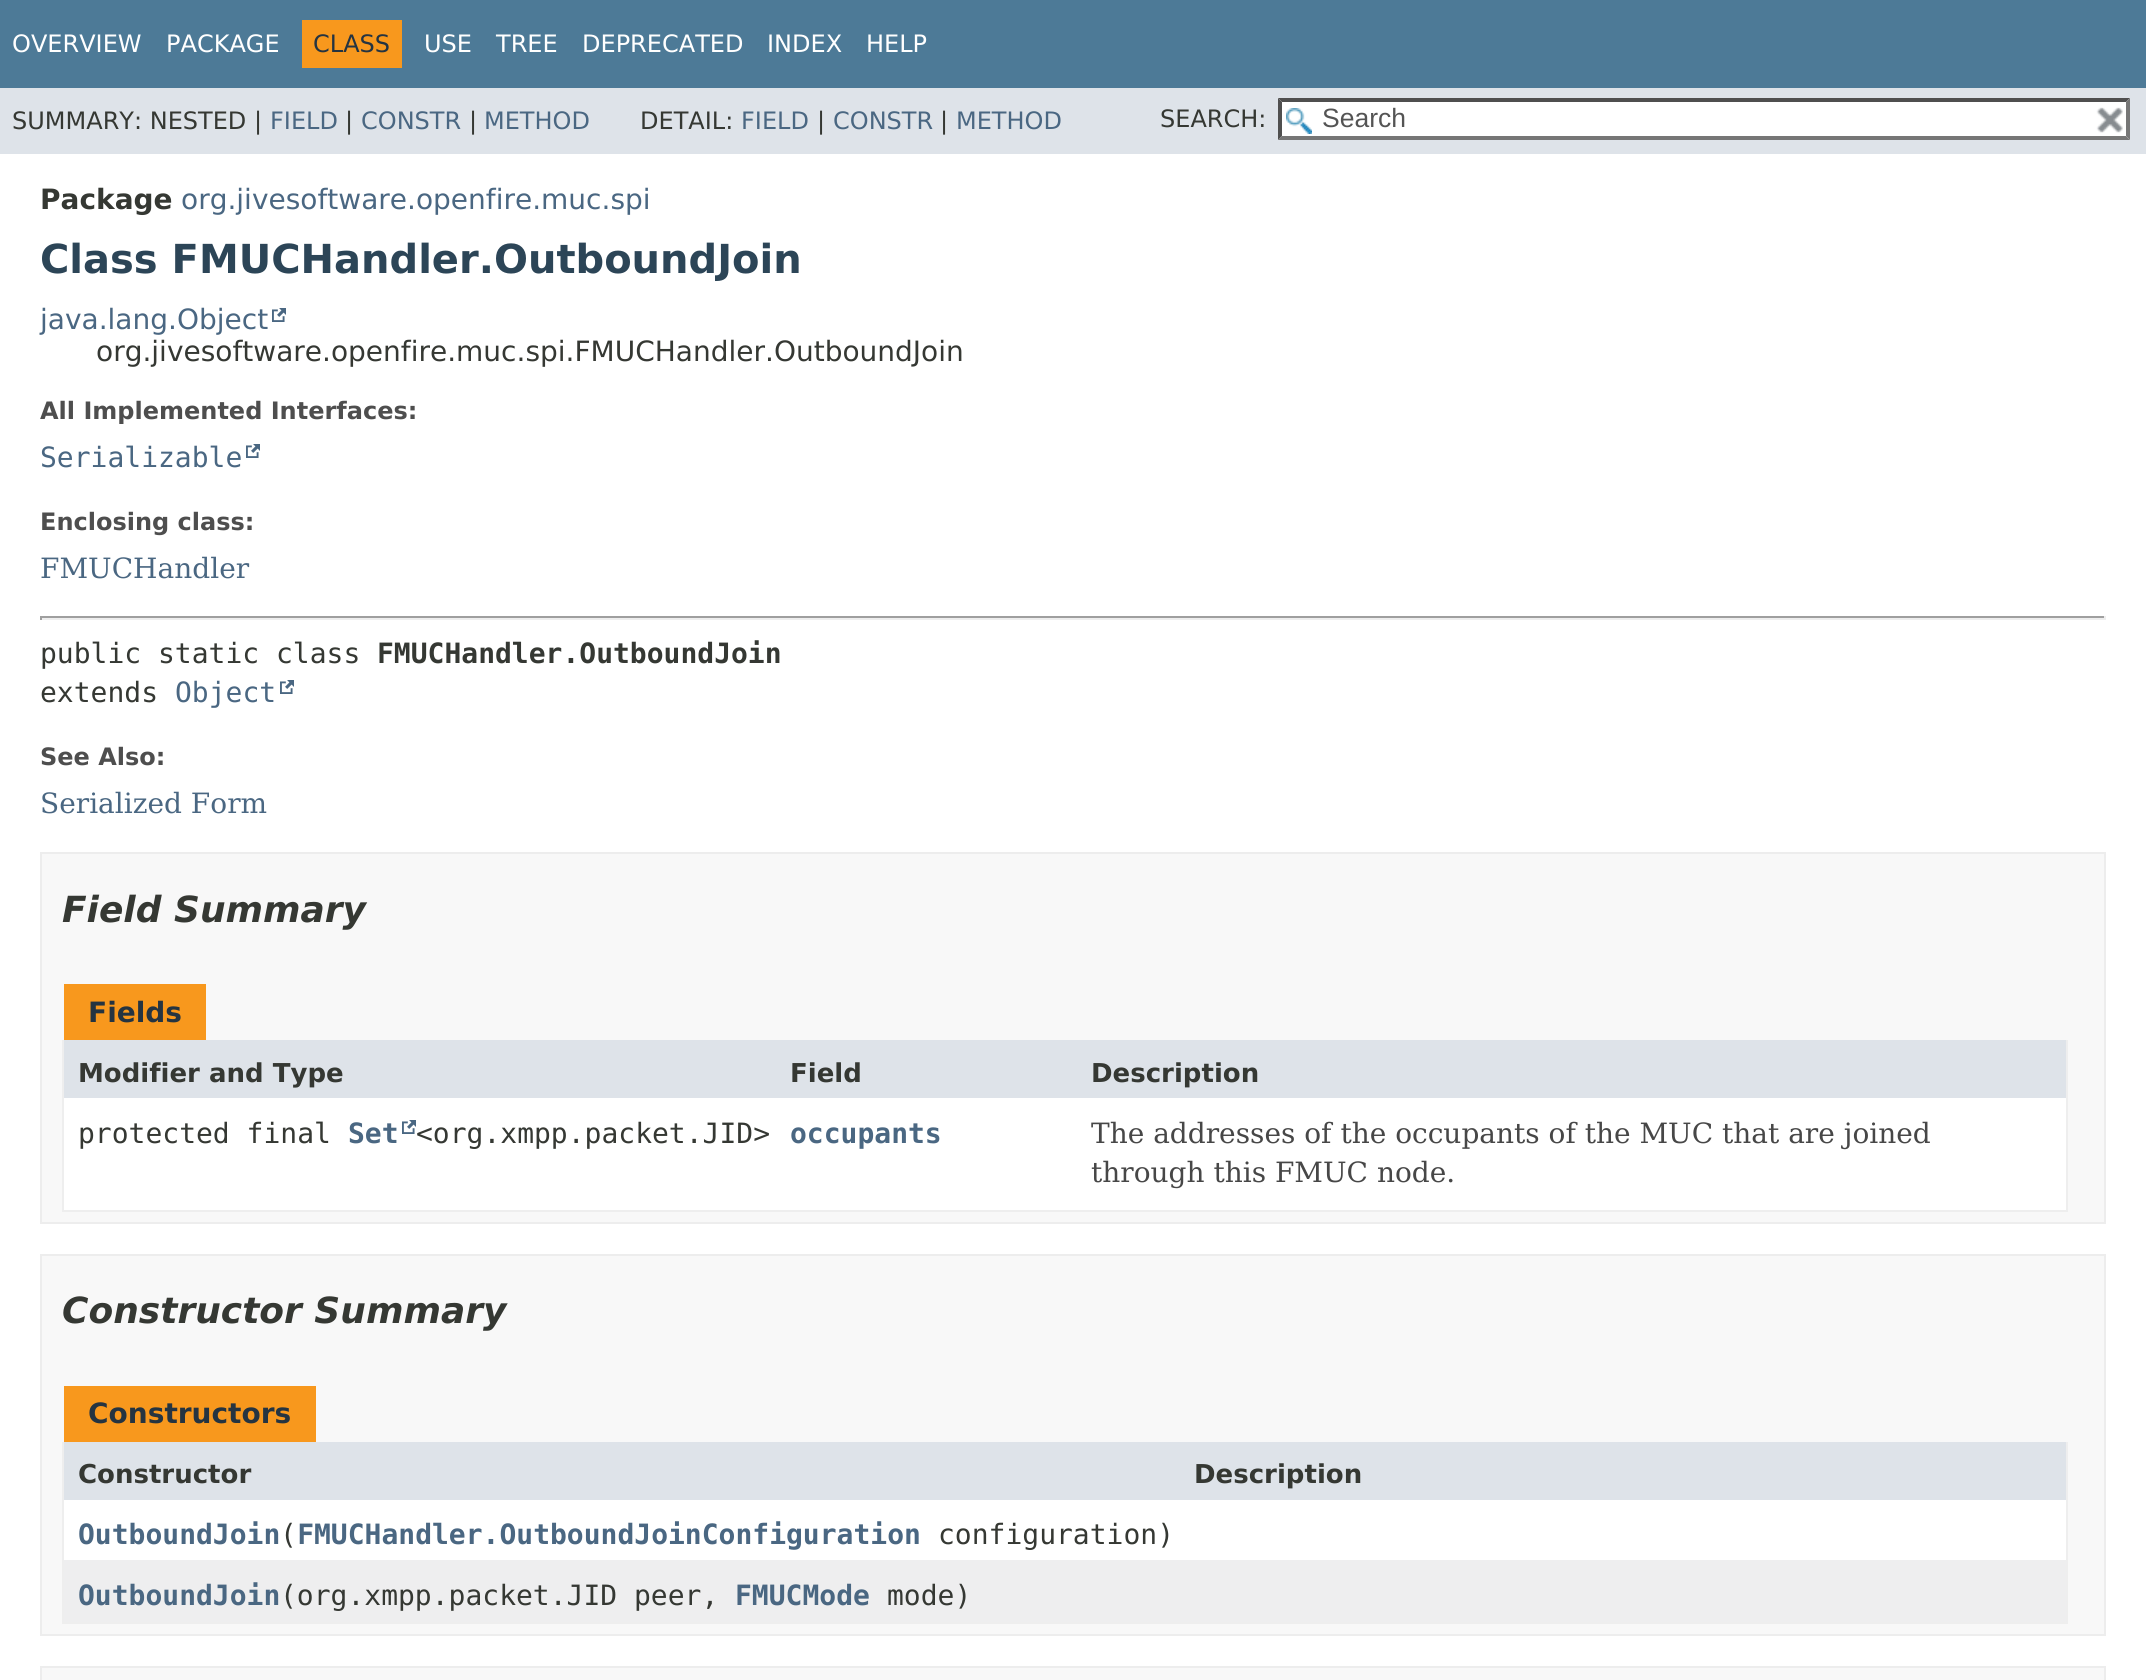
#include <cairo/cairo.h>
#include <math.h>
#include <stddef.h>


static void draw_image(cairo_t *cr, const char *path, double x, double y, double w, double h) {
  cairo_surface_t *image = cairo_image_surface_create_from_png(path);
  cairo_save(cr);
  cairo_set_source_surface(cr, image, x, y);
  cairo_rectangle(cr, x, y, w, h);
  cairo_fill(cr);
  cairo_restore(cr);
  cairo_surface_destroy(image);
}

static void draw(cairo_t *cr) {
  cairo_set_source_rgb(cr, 1, 1, 1);
  cairo_paint(cr);
  cairo_set_source_rgb(cr, 77 / 255.0, 122 / 255.0, 151 / 255.0);
  cairo_rectangle(cr, 0, 0, 2146, 88);
  cairo_fill(cr);
  cairo_set_source_rgb(cr, 248 / 255.0, 152 / 255.0, 29 / 255.0);
  cairo_rectangle(cr, 302, 20, 100, 48);
  cairo_fill(cr);
  cairo_set_source_rgb(cr, 222 / 255.0, 227 / 255.0, 233 / 255.0);
  cairo_rectangle(cr, 0, 88, 2146, 66);
  cairo_fill(cr);
  cairo_set_source_rgb(cr, 1, 1, 1);
  cairo_rectangle(cr, 1278, 98, 852, 42);
  cairo_fill(cr);
  draw_image(cr, "images/1.png", 1286, 108, 26, 26);
  cairo_set_source_rgb(cr, 79 / 255.0, 79 / 255.0, 79 / 255.0);
  cairo_new_path(cr);
  cairo_move_to(cr, 1278, 98);
  cairo_line_to(cr, 2130, 98);
  cairo_line_to(cr, 2126, 102);
  cairo_line_to(cr, 1282, 102);
  cairo_close_path(cr);
  cairo_fill(cr);
  cairo_set_source_rgb(cr, 118 / 255.0, 118 / 255.0, 118 / 255.0);
  cairo_new_path(cr);
  cairo_move_to(cr, 2130, 98);
  cairo_line_to(cr, 2130, 140);
  cairo_line_to(cr, 2126, 136);
  cairo_line_to(cr, 2126, 102);
  cairo_close_path(cr);
  cairo_fill(cr);
  cairo_new_path(cr);
  cairo_move_to(cr, 2130, 140);
  cairo_line_to(cr, 1278, 140);
  cairo_line_to(cr, 1282, 136);
  cairo_line_to(cr, 2126, 136);
  cairo_close_path(cr);
  cairo_fill(cr);
  cairo_set_source_rgb(cr, 79 / 255.0, 79 / 255.0, 79 / 255.0);
  cairo_new_path(cr);
  cairo_move_to(cr, 1278, 140);
  cairo_line_to(cr, 1278, 98);
  cairo_line_to(cr, 1282, 102);
  cairo_line_to(cr, 1282, 136);
  cairo_close_path(cr);
  cairo_fill(cr);
  draw_image(cr, "images/2.png", 2096, 107, 27, 26);
  draw_image(cr, "images/3.png", 272, 308, 14, 14);
  draw_image(cr, "images/3.png", 246, 444, 14, 14);
  cairo_set_source_rgb(cr, 159 / 255.0, 159 / 255.0, 159 / 255.0);
  cairo_rectangle(cr, 40, 616, 2066, 2);
  cairo_fill(cr);
  cairo_set_source_rgb(cr, 238 / 255.0, 238 / 255.0, 238 / 255.0);
  cairo_rectangle(cr, 2104, 616, 2, 4);
  cairo_fill(cr);
  cairo_rectangle(cr, 40, 618, 2066, 2);
  cairo_fill(cr);
  cairo_set_source_rgb(cr, 159 / 255.0, 159 / 255.0, 159 / 255.0);
  cairo_rectangle(cr, 40, 616, 2, 4);
  cairo_fill(cr);
  draw_image(cr, "images/3.png", 280, 680, 14, 14);
  cairo_set_source_rgb(cr, 248 / 255.0, 248 / 255.0, 248 / 255.0);
  cairo_rectangle(cr, 41, 853, 2064, 370);
  cairo_fill_preserve(cr);
  cairo_set_source_rgb(cr, 237 / 255.0, 237 / 255.0, 237 / 255.0);
  cairo_stroke(cr);
  cairo_set_source_rgb(cr, 248 / 255.0, 152 / 255.0, 29 / 255.0);
  cairo_rectangle(cr, 64, 984, 142, 56);
  cairo_fill(cr);
  cairo_set_source_rgb(cr, 238 / 255.0, 238 / 255.0, 238 / 255.0);
  cairo_rectangle(cr, 2066, 1040, 2, 172);
  cairo_fill(cr);
  cairo_rectangle(cr, 62, 1210, 2006, 2);
  cairo_fill(cr);
  cairo_rectangle(cr, 62, 1040, 2, 172);
  cairo_fill(cr);
  cairo_set_source_rgb(cr, 222 / 255.0, 227 / 255.0, 233 / 255.0);
  cairo_rectangle(cr, 64, 1040, 1012, 58);
  cairo_fill(cr);
  cairo_rectangle(cr, 1076, 1040, 990, 58);
  cairo_fill(cr);
  cairo_set_source_rgb(cr, 1, 1, 1);
  cairo_rectangle(cr, 64, 1098, 1012, 112);
  cairo_fill(cr);
  draw_image(cr, "images/3.png", 402, 1120, 14, 14);
  cairo_rectangle(cr, 1076, 1098, 990, 112);
  cairo_fill(cr);
  cairo_set_source_rgb(cr, 248 / 255.0, 248 / 255.0, 248 / 255.0);
  cairo_rectangle(cr, 41, 1255, 2064, 380);
  cairo_fill_preserve(cr);
  cairo_set_source_rgb(cr, 237 / 255.0, 237 / 255.0, 237 / 255.0);
  cairo_stroke(cr);
  cairo_set_source_rgb(cr, 248 / 255.0, 152 / 255.0, 29 / 255.0);
  cairo_rectangle(cr, 64, 1386, 252, 56);
  cairo_fill(cr);
  cairo_set_source_rgb(cr, 238 / 255.0, 238 / 255.0, 238 / 255.0);
  cairo_rectangle(cr, 2066, 1442, 2, 182);
  cairo_fill(cr);
  cairo_rectangle(cr, 62, 1622, 2006, 2);
  cairo_fill(cr);
  cairo_rectangle(cr, 62, 1442, 2, 182);
  cairo_fill(cr);
  cairo_set_source_rgb(cr, 222 / 255.0, 227 / 255.0, 233 / 255.0);
  cairo_rectangle(cr, 64, 1442, 2002, 58);
  cairo_fill(cr);
  cairo_set_source_rgb(cr, 1, 1, 1);
  cairo_rectangle(cr, 64, 1500, 2002, 60);
  cairo_fill(cr);
  cairo_set_source_rgb(cr, 238 / 255.0, 238 / 255.0, 239 / 255.0);
  cairo_rectangle(cr, 64, 1560, 2002, 62);
  cairo_fill(cr);
  cairo_set_source_rgb(cr, 248 / 255.0, 248 / 255.0, 248 / 255.0);
  cairo_rectangle(cr, 41, 1667, 2064, 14);
  cairo_fill_preserve(cr);
  cairo_set_source_rgb(cr, 237 / 255.0, 237 / 255.0, 237 / 255.0);
  cairo_stroke(cr);
  cairo_select_font_face(cr, "DejaVu Sans", CAIRO_FONT_SLANT_NORMAL, CAIRO_FONT_WEIGHT_NORMAL);
  cairo_set_font_size(cr, 24);
  cairo_set_source_rgb(cr, 1, 1, 1);
  cairo_move_to(cr, 12, 52);
  cairo_show_text(cr, "OVERVIEW");
  cairo_move_to(cr, 166, 52);
  cairo_show_text(cr, "PACKAGE");
  cairo_set_source_rgb(cr, 37 / 255.0, 52 / 255.0, 65 / 255.0);
  cairo_move_to(cr, 313, 52);
  cairo_show_text(cr, "CLASS");
  cairo_set_source_rgb(cr, 1, 1, 1);
  cairo_move_to(cr, 424, 52);
  cairo_show_text(cr, "USE");
  cairo_move_to(cr, 496, 52);
  cairo_show_text(cr, "TREE");
  cairo_move_to(cr, 582, 52);
  cairo_show_text(cr, "DEPRECATED");
  cairo_move_to(cr, 767, 52);
  cairo_show_text(cr, "INDEX");
  cairo_move_to(cr, 866, 52);
  cairo_show_text(cr, "HELP");
  cairo_set_source_rgb(cr, 53 / 255.0, 56 / 255.0, 51 / 255.0);
  cairo_move_to(cr, 12, 129);
  cairo_show_text(cr, "SUMMARY: NESTED |");
  cairo_set_source_rgb(cr, 74 / 255.0, 103 / 255.0, 130 / 255.0);
  cairo_move_to(cr, 270, 129);
  cairo_show_text(cr, "FIELD");
  cairo_set_source_rgb(cr, 53 / 255.0, 56 / 255.0, 51 / 255.0);
  cairo_move_to(cr, 345, 129);
  cairo_show_text(cr, "|");
  cairo_set_source_rgb(cr, 74 / 255.0, 103 / 255.0, 130 / 255.0);
  cairo_move_to(cr, 361, 129);
  cairo_show_text(cr, "CONSTR");
  cairo_set_source_rgb(cr, 53 / 255.0, 56 / 255.0, 51 / 255.0);
  cairo_move_to(cr, 469, 129);
  cairo_show_text(cr, "|");
  cairo_set_source_rgb(cr, 74 / 255.0, 103 / 255.0, 130 / 255.0);
  cairo_move_to(cr, 484, 129);
  cairo_show_text(cr, "METHOD");
  cairo_set_source_rgb(cr, 53 / 255.0, 56 / 255.0, 51 / 255.0);
  cairo_move_to(cr, 640, 129);
  cairo_show_text(cr, "DETAIL:");
  cairo_set_source_rgb(cr, 74 / 255.0, 103 / 255.0, 130 / 255.0);
  cairo_move_to(cr, 741, 129);
  cairo_show_text(cr, "FIELD");
  cairo_set_source_rgb(cr, 53 / 255.0, 56 / 255.0, 51 / 255.0);
  cairo_move_to(cr, 817, 129);
  cairo_show_text(cr, "|");
  cairo_set_source_rgb(cr, 74 / 255.0, 103 / 255.0, 130 / 255.0);
  cairo_move_to(cr, 833, 129);
  cairo_show_text(cr, "CONSTR");
  cairo_set_source_rgb(cr, 53 / 255.0, 56 / 255.0, 51 / 255.0);
  cairo_move_to(cr, 940, 129);
  cairo_show_text(cr, "|");
  cairo_set_source_rgb(cr, 74 / 255.0, 103 / 255.0, 130 / 255.0);
  cairo_move_to(cr, 956, 129);
  cairo_show_text(cr, "METHOD");
  cairo_set_source_rgb(cr, 53 / 255.0, 56 / 255.0, 51 / 255.0);
  cairo_move_to(cr, 1160, 127);
  cairo_show_text(cr, "SEARCH:");
  cairo_select_font_face(cr, "Liberation Sans", CAIRO_FONT_SLANT_NORMAL, CAIRO_FONT_WEIGHT_NORMAL);
  cairo_set_font_size(cr, 26.5);
  cairo_set_source_rgb(cr, 84 / 255.0, 84 / 255.0, 84 / 255.0);
  cairo_move_to(cr, 1322, 127);
  cairo_show_text(cr, "Search");
  cairo_select_font_face(cr, "DejaVu Sans", CAIRO_FONT_SLANT_NORMAL, CAIRO_FONT_WEIGHT_BOLD);
  cairo_set_font_size(cr, 28);
  cairo_set_source_rgb(cr, 53 / 255.0, 56 / 255.0, 51 / 255.0);
  cairo_move_to(cr, 40, 209);
  cairo_show_text(cr, "Package");
  cairo_select_font_face(cr, "DejaVu Sans", CAIRO_FONT_SLANT_NORMAL, CAIRO_FONT_WEIGHT_NORMAL);
  cairo_set_source_rgb(cr, 74 / 255.0, 103 / 255.0, 130 / 255.0);
  cairo_move_to(cr, 181, 209);
  cairo_show_text(cr, "org.jivesoftware.openfire.muc.spi");
  cairo_select_font_face(cr, "DejaVu Sans", CAIRO_FONT_SLANT_NORMAL, CAIRO_FONT_WEIGHT_BOLD);
  cairo_set_font_size(cr, 40);
  cairo_set_source_rgb(cr, 44 / 255.0, 69 / 255.0, 87 / 255.0);
  cairo_move_to(cr, 40, 273);
  cairo_show_text(cr, "Class FMUCHandler.OutboundJoin");
  cairo_select_font_face(cr, "DejaVu Sans", CAIRO_FONT_SLANT_NORMAL, CAIRO_FONT_WEIGHT_NORMAL);
  cairo_set_font_size(cr, 28);
  cairo_set_source_rgb(cr, 74 / 255.0, 103 / 255.0, 130 / 255.0);
  cairo_move_to(cr, 40, 329);
  cairo_show_text(cr, "java.lang.Object");
  cairo_set_source_rgb(cr, 53 / 255.0, 56 / 255.0, 51 / 255.0);
  cairo_move_to(cr, 96, 361);
  cairo_show_text(cr, "org.jivesoftware.openfire.muc.spi.FMUCHandler.OutboundJoin");
  cairo_select_font_face(cr, "DejaVu Sans", CAIRO_FONT_SLANT_NORMAL, CAIRO_FONT_WEIGHT_BOLD);
  cairo_set_font_size(cr, 24);
  cairo_set_source_rgb(cr, 78 / 255.0, 78 / 255.0, 78 / 255.0);
  cairo_move_to(cr, 40, 419);
  cairo_show_text(cr, "All Implemented Interfaces:");
  cairo_select_font_face(cr, "DejaVu Sans Mono", CAIRO_FONT_SLANT_NORMAL, CAIRO_FONT_WEIGHT_NORMAL);
  cairo_set_font_size(cr, 28);
  cairo_set_source_rgb(cr, 74 / 255.0, 103 / 255.0, 130 / 255.0);
  cairo_move_to(cr, 40, 467);
  cairo_show_text(cr, "Serializable");
  cairo_select_font_face(cr, "DejaVu Sans", CAIRO_FONT_SLANT_NORMAL, CAIRO_FONT_WEIGHT_BOLD);
  cairo_set_font_size(cr, 24);
  cairo_set_source_rgb(cr, 78 / 255.0, 78 / 255.0, 78 / 255.0);
  cairo_move_to(cr, 40, 530);
  cairo_show_text(cr, "Enclosing class:");
  cairo_select_font_face(cr, "DejaVu Serif", CAIRO_FONT_SLANT_NORMAL, CAIRO_FONT_WEIGHT_NORMAL);
  cairo_set_font_size(cr, 28);
  cairo_set_source_rgb(cr, 74 / 255.0, 103 / 255.0, 130 / 255.0);
  cairo_move_to(cr, 40, 578);
  cairo_show_text(cr, "FMUCHandler");
  cairo_select_font_face(cr, "DejaVu Sans Mono", CAIRO_FONT_SLANT_NORMAL, CAIRO_FONT_WEIGHT_NORMAL);
  cairo_set_source_rgb(cr, 53 / 255.0, 56 / 255.0, 51 / 255.0);
  cairo_move_to(cr, 40, 663);
  cairo_show_text(cr, "public static class");
  cairo_select_font_face(cr, "DejaVu Sans Mono", CAIRO_FONT_SLANT_NORMAL, CAIRO_FONT_WEIGHT_BOLD);
  cairo_move_to(cr, 377, 663);
  cairo_show_text(cr, "FMUCHandler.OutboundJoin");
  cairo_select_font_face(cr, "DejaVu Sans Mono", CAIRO_FONT_SLANT_NORMAL, CAIRO_FONT_WEIGHT_NORMAL);
  cairo_move_to(cr, 40, 702);
  cairo_show_text(cr, "extends");
  cairo_set_source_rgb(cr, 74 / 255.0, 103 / 255.0, 130 / 255.0);
  cairo_move_to(cr, 175, 702);
  cairo_show_text(cr, "Object");
  cairo_select_font_face(cr, "DejaVu Sans", CAIRO_FONT_SLANT_NORMAL, CAIRO_FONT_WEIGHT_BOLD);
  cairo_set_font_size(cr, 24);
  cairo_set_source_rgb(cr, 78 / 255.0, 78 / 255.0, 78 / 255.0);
  cairo_move_to(cr, 40, 765);
  cairo_show_text(cr, "See Also:");
  cairo_select_font_face(cr, "DejaVu Serif", CAIRO_FONT_SLANT_NORMAL, CAIRO_FONT_WEIGHT_NORMAL);
  cairo_set_font_size(cr, 28);
  cairo_set_source_rgb(cr, 74 / 255.0, 103 / 255.0, 130 / 255.0);
  cairo_move_to(cr, 40, 813);
  cairo_show_text(cr, "Serialized Form");
  cairo_select_font_face(cr, "DejaVu Sans", CAIRO_FONT_SLANT_ITALIC, CAIRO_FONT_WEIGHT_BOLD);
  cairo_set_font_size(cr, 36);
  cairo_set_source_rgb(cr, 53 / 255.0, 56 / 255.0, 51 / 255.0);
  cairo_move_to(cr, 62, 922);
  cairo_show_text(cr, "Field Summary");
  cairo_select_font_face(cr, "DejaVu Sans", CAIRO_FONT_SLANT_NORMAL, CAIRO_FONT_WEIGHT_BOLD);
  cairo_set_font_size(cr, 28);
  cairo_set_source_rgb(cr, 37 / 255.0, 52 / 255.0, 65 / 255.0);
  cairo_move_to(cr, 88, 1022);
  cairo_show_text(cr, "Fields");
  cairo_set_font_size(cr, 26);
  cairo_set_source_rgb(cr, 53 / 255.0, 56 / 255.0, 51 / 255.0);
  cairo_move_to(cr, 78, 1082);
  cairo_show_text(cr, "Modifier and Type");
  cairo_move_to(cr, 790, 1082);
  cairo_show_text(cr, "Field");
  cairo_move_to(cr, 1091, 1082);
  cairo_show_text(cr, "Description");
  cairo_select_font_face(cr, "DejaVu Sans Mono", CAIRO_FONT_SLANT_NORMAL, CAIRO_FONT_WEIGHT_NORMAL);
  cairo_set_font_size(cr, 28);
  cairo_move_to(cr, 78, 1143);
  cairo_show_text(cr, "protected final");
  cairo_select_font_face(cr, "DejaVu Sans Mono", CAIRO_FONT_SLANT_NORMAL, CAIRO_FONT_WEIGHT_BOLD);
  cairo_set_source_rgb(cr, 74 / 255.0, 103 / 255.0, 130 / 255.0);
  cairo_move_to(cr, 348, 1143);
  cairo_show_text(cr, "Set");
  cairo_select_font_face(cr, "DejaVu Sans Mono", CAIRO_FONT_SLANT_NORMAL, CAIRO_FONT_WEIGHT_NORMAL);
  cairo_set_source_rgb(cr, 53 / 255.0, 56 / 255.0, 51 / 255.0);
  cairo_move_to(cr, 416, 1143);
  cairo_show_text(cr, "<org.xmpp.packet.JID>");
  cairo_select_font_face(cr, "DejaVu Sans Mono", CAIRO_FONT_SLANT_NORMAL, CAIRO_FONT_WEIGHT_BOLD);
  cairo_set_source_rgb(cr, 74 / 255.0, 103 / 255.0, 130 / 255.0);
  cairo_move_to(cr, 790, 1143);
  cairo_show_text(cr, "occupants");
  cairo_select_font_face(cr, "DejaVu Serif", CAIRO_FONT_SLANT_NORMAL, CAIRO_FONT_WEIGHT_NORMAL);
  cairo_set_source_rgb(cr, 71 / 255.0, 71 / 255.0, 71 / 255.0);
  cairo_move_to(cr, 1091, 1143);
  cairo_show_text(cr, "The addresses of the occupants of the MUC that are joined");
  cairo_move_to(cr, 1091, 1182);
  cairo_show_text(cr, "through this FMUC node.");
  cairo_select_font_face(cr, "DejaVu Sans", CAIRO_FONT_SLANT_ITALIC, CAIRO_FONT_WEIGHT_BOLD);
  cairo_set_font_size(cr, 36);
  cairo_set_source_rgb(cr, 53 / 255.0, 56 / 255.0, 51 / 255.0);
  cairo_move_to(cr, 62, 1323);
  cairo_show_text(cr, "Constructor Summary");
  cairo_select_font_face(cr, "DejaVu Sans", CAIRO_FONT_SLANT_NORMAL, CAIRO_FONT_WEIGHT_BOLD);
  cairo_set_font_size(cr, 28);
  cairo_set_source_rgb(cr, 37 / 255.0, 52 / 255.0, 65 / 255.0);
  cairo_move_to(cr, 88, 1423);
  cairo_show_text(cr, "Constructors");
  cairo_set_font_size(cr, 26);
  cairo_set_source_rgb(cr, 53 / 255.0, 56 / 255.0, 51 / 255.0);
  cairo_move_to(cr, 78, 1483);
  cairo_show_text(cr, "Constructor");
  cairo_move_to(cr, 1194, 1483);
  cairo_show_text(cr, "Description");
  cairo_select_font_face(cr, "DejaVu Sans Mono", CAIRO_FONT_SLANT_NORMAL, CAIRO_FONT_WEIGHT_BOLD);
  cairo_set_font_size(cr, 28);
  cairo_set_source_rgb(cr, 74 / 255.0, 103 / 255.0, 130 / 255.0);
  cairo_move_to(cr, 78, 1544);
  cairo_show_text(cr, "OutboundJoin FMUCHandler.OutboundJoinConfiguration");
  cairo_select_font_face(cr, "DejaVu Sans Mono", CAIRO_FONT_SLANT_NORMAL, CAIRO_FONT_WEIGHT_NORMAL);
  cairo_set_source_rgb(cr, 53 / 255.0, 56 / 255.0, 51 / 255.0);
  cairo_move_to(cr, 280, 1544);
  cairo_show_text(cr, "(");
  cairo_move_to(cr, 938, 1544);
  cairo_show_text(cr, "configuration)");
  cairo_select_font_face(cr, "DejaVu Sans Mono", CAIRO_FONT_SLANT_NORMAL, CAIRO_FONT_WEIGHT_BOLD);
  cairo_set_source_rgb(cr, 74 / 255.0, 103 / 255.0, 130 / 255.0);
  cairo_move_to(cr, 78, 1605);
  cairo_show_text(cr, "OutboundJoin");
  cairo_select_font_face(cr, "DejaVu Sans Mono", CAIRO_FONT_SLANT_NORMAL, CAIRO_FONT_WEIGHT_NORMAL);
  cairo_set_source_rgb(cr, 53 / 255.0, 56 / 255.0, 51 / 255.0);
  cairo_move_to(cr, 280, 1605);
  cairo_show_text(cr, "(org.xmpp.packet.JID peer,");
  cairo_select_font_face(cr, "DejaVu Sans Mono", CAIRO_FONT_SLANT_NORMAL, CAIRO_FONT_WEIGHT_BOLD);
  cairo_set_source_rgb(cr, 74 / 255.0, 103 / 255.0, 130 / 255.0);
  cairo_move_to(cr, 735, 1605);
  cairo_show_text(cr, "FMUCMode");
  cairo_select_font_face(cr, "DejaVu Sans Mono", CAIRO_FONT_SLANT_NORMAL, CAIRO_FONT_WEIGHT_NORMAL);
  cairo_set_source_rgb(cr, 53 / 255.0, 56 / 255.0, 51 / 255.0);
  cairo_move_to(cr, 887, 1605);
  cairo_show_text(cr, "mode)");
}

int main(void) {
  cairo_surface_t *surface = cairo_image_surface_create(CAIRO_FORMAT_RGB24, 2146, 1680);
  cairo_t *cr = cairo_create(surface);
  cairo_font_options_t *options = cairo_font_options_create();
  cairo_font_options_set_hint_metrics(options, CAIRO_HINT_METRICS_OFF);
  cairo_font_options_set_hint_style(options, CAIRO_HINT_STYLE_NONE);
  cairo_set_font_options(cr, options);
  cairo_set_miter_limit(cr, 4);
  draw(cr);
  cairo_surface_write_to_png(surface, "out.png");
  cairo_font_options_destroy(options);
  cairo_destroy(cr);
  cairo_surface_destroy(surface);
  return 0;
}
